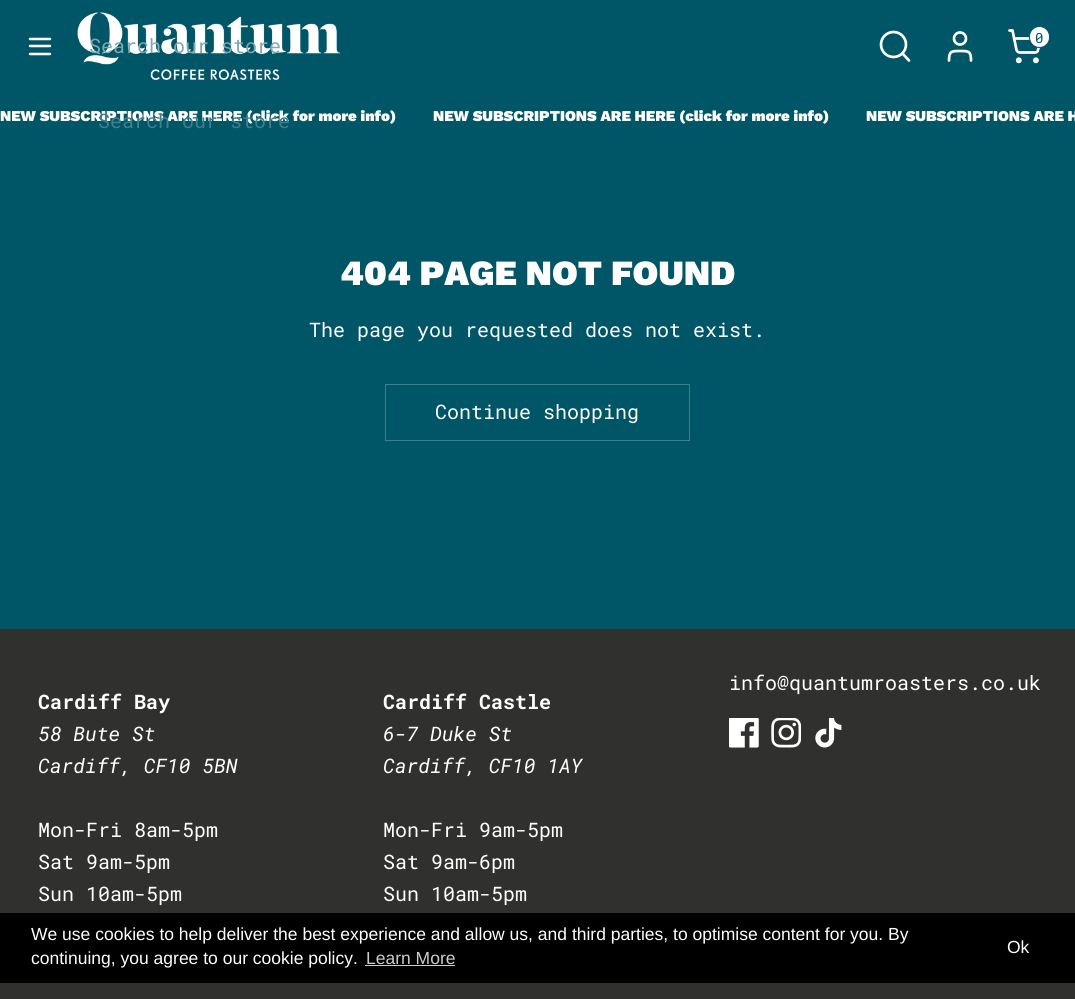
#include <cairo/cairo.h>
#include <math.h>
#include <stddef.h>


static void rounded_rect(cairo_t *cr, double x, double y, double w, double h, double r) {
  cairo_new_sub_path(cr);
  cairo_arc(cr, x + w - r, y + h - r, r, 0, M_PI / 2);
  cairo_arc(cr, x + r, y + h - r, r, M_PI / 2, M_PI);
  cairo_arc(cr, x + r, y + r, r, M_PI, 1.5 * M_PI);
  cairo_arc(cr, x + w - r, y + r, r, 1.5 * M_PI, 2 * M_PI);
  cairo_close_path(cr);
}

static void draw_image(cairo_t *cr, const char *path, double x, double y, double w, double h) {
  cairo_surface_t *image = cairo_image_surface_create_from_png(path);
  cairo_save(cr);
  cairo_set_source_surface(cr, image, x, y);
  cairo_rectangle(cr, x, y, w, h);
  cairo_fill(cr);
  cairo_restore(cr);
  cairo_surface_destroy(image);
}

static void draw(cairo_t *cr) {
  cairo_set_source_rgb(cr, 0, 85 / 255.0, 103 / 255.0);
  cairo_paint(cr);
  draw_image(cr, "images/1.png", 77, 12, 263, 68);
  cairo_new_path(cr);
  cairo_move_to(cr, 30, 46);
  cairo_line_to(cr, 50, 46);
  cairo_move_to(cr, 30, 39);
  cairo_line_to(cr, 50, 39);
  cairo_move_to(cr, 30, 54);
  cairo_line_to(cr, 50, 54);
  cairo_set_source_rgb(cr, 1, 1, 1);
  cairo_set_line_width(cr, 2.5);
  cairo_set_line_cap(cr, CAIRO_LINE_CAP_ROUND);
  cairo_set_line_join(cr, CAIRO_LINE_JOIN_ROUND);
  cairo_stroke(cr);
  cairo_arc(cr, 893.5, 44.5, 12.5, 0, 2 * M_PI);
  cairo_set_line_width(cr, 2.7);
  cairo_set_line_cap(cr, CAIRO_LINE_CAP_BUTT);
  cairo_set_line_join(cr, CAIRO_LINE_JOIN_MITER);
  cairo_stroke(cr);
  cairo_new_path(cr);
  cairo_move_to(cr, 909, 60.5);
  cairo_line_to(cr, 902.5, 53.5);
  cairo_set_line_cap(cr, CAIRO_LINE_CAP_ROUND);
  cairo_set_line_join(cr, CAIRO_LINE_JOIN_ROUND);
  cairo_stroke(cr);
  cairo_new_path(cr);
  cairo_move_to(cr, 971, 60.5);
  cairo_curve_to(cr, 971, 51, 968.5, 51, 960, 51);
  cairo_curve_to(cr, 951.5, 51, 949, 51, 949, 60.5);
  cairo_stroke(cr);
  cairo_arc(cr, 960, 38.5, 6, 0, 2 * M_PI);
  cairo_set_line_cap(cr, CAIRO_LINE_CAP_BUTT);
  cairo_set_line_join(cr, CAIRO_LINE_JOIN_MITER);
  cairo_stroke(cr);
  cairo_arc(cr, 1018.8, 60.3, 1.6, 0, 2 * M_PI);
  cairo_stroke(cr);
  cairo_arc(cr, 1035.9, 60.3, 1.6, 0, 2 * M_PI);
  cairo_stroke(cr);
  cairo_new_path(cr);
  cairo_move_to(cr, 1009.5, 30.5);
  cairo_line_to(cr, 1012.5, 30.5);
  cairo_line_to(cr, 1016.5, 50);
  cairo_curve_to(cr, 1017, 51.5, 1018.5, 52.5, 1020, 52.5);
  cairo_line_to(cr, 1035, 52.5);
  cairo_curve_to(cr, 1036.5, 52.5, 1038, 51.5, 1038, 50);
  cairo_line_to(cr, 1041, 38.5);
  cairo_line_to(cr, 1014, 38.5);
  cairo_set_line_cap(cr, CAIRO_LINE_CAP_ROUND);
  cairo_set_line_join(cr, CAIRO_LINE_JOIN_ROUND);
  cairo_stroke(cr);
  rounded_rect(cr, 1029.5, 26.5, 20, 21, 10);
  cairo_fill_preserve(cr);
  cairo_set_source_rgb(cr, 0, 85 / 255.0, 103 / 255.0);
  cairo_set_line_width(cr, 1);
  cairo_set_line_cap(cr, CAIRO_LINE_CAP_BUTT);
  cairo_set_line_join(cr, CAIRO_LINE_JOIN_MITER);
  cairo_stroke(cr);
  cairo_rectangle(cr, 385.5, 384.5, 304, 56);
  cairo_set_source_rgb(cr, 64 / 255.0, 128 / 255.0, 141 / 255.0);
  cairo_stroke(cr);
  cairo_set_source_rgb(cr, 48 / 255.0, 49 / 255.0, 47 / 255.0);
  cairo_rectangle(cr, 0, 629, 1075, 370);
  cairo_fill(cr);
  draw_image(cr, "images/2.png", 729, 718, 30, 30);
  draw_image(cr, "images/3.png", 771, 718, 30, 30);
  draw_image(cr, "images/4.png", 815, 718, 27, 30);
  cairo_set_source_rgb(cr, 0, 0, 0);
  cairo_rectangle(cr, 0, 913, 1075, 70);
  cairo_fill(cr);
  cairo_set_source_rgb(cr, 204 / 255.0, 204 / 255.0, 204 / 255.0);
  cairo_rectangle(cr, 365, 965, 90, 1);
  cairo_fill(cr);
  cairo_select_font_face(cr, "Roboto Mono", CAIRO_FONT_SLANT_NORMAL, CAIRO_FONT_WEIGHT_NORMAL);
  cairo_set_font_size(cr, 20);
  cairo_set_source_rgb(cr, 124 / 255.0, 168 / 255.0, 177 / 255.0);
  cairo_move_to(cr, 89, 53);
  cairo_show_text(cr, "Search our store");
  cairo_set_font_size(cr, 14);
  cairo_set_source_rgb(cr, 0, 85 / 255.0, 103 / 255.0);
  cairo_move_to(cr, 1035, 43);
  cairo_show_text(cr, "0");
  cairo_select_font_face(cr, "Work Sans Black", CAIRO_FONT_SLANT_NORMAL, CAIRO_FONT_WEIGHT_NORMAL);
  cairo_set_font_size(cr, 15);
  cairo_set_source_rgb(cr, 1, 1, 1);
  cairo_move_to(cr, 0, 121);
  cairo_show_text(cr, "NEW SUBSCRIPTIONS ARE HERE (click for more info)");
  cairo_select_font_face(cr, "Roboto Mono", CAIRO_FONT_SLANT_NORMAL, CAIRO_FONT_WEIGHT_NORMAL);
  cairo_set_font_size(cr, 20);
  cairo_set_source_rgb(cr, 64 / 255.0, 128 / 255.0, 141 / 255.0);
  cairo_move_to(cr, 98, 128);
  cairo_show_text(cr, "Search our store");
  cairo_select_font_face(cr, "Work Sans Black", CAIRO_FONT_SLANT_NORMAL, CAIRO_FONT_WEIGHT_NORMAL);
  cairo_set_font_size(cr, 15);
  cairo_set_source_rgb(cr, 1, 1, 1);
  cairo_move_to(cr, 433, 121);
  cairo_show_text(cr, "NEW SUBSCRIPTIONS ARE HERE (click for more info)");
  cairo_move_to(cr, 866, 121);
  cairo_show_text(cr, "NEW SUBSCRIPTIONS ARE H");
  cairo_set_font_size(cr, 35.4);
  cairo_move_to(cr, 340, 285);
  cairo_show_text(cr, "404 PAGE NOT FOUND");
  cairo_select_font_face(cr, "Roboto Mono", CAIRO_FONT_SLANT_NORMAL, CAIRO_FONT_WEIGHT_NORMAL);
  cairo_set_font_size(cr, 20);
  cairo_move_to(cr, 309, 337);
  cairo_show_text(cr, "The page you requested does not exist.");
  cairo_move_to(cr, 435, 419);
  cairo_show_text(cr, "Continue shopping");
  cairo_move_to(cr, 729, 690);
  cairo_show_text(cr, "info@quantumroasters.co.uk");
  cairo_select_font_face(cr, "Roboto Mono", CAIRO_FONT_SLANT_NORMAL, CAIRO_FONT_WEIGHT_BOLD);
  cairo_move_to(cr, 38, 709);
  cairo_show_text(cr, "Cardiff Bay");
  cairo_select_font_face(cr, "Roboto Mono", CAIRO_FONT_SLANT_ITALIC, CAIRO_FONT_WEIGHT_NORMAL);
  cairo_move_to(cr, 38, 741);
  cairo_show_text(cr, "58 Bute St");
  cairo_move_to(cr, 38, 773);
  cairo_show_text(cr, "Cardiff, CF10 5BN");
  cairo_select_font_face(cr, "Roboto Mono", CAIRO_FONT_SLANT_NORMAL, CAIRO_FONT_WEIGHT_NORMAL);
  cairo_move_to(cr, 38, 837);
  cairo_show_text(cr, "Mon-Fri 8am-5pm");
  cairo_move_to(cr, 38, 869);
  cairo_show_text(cr, "Sat 9am-5pm");
  cairo_move_to(cr, 38, 901);
  cairo_show_text(cr, "Sun 10am-5pm");
  cairo_select_font_face(cr, "Roboto Mono", CAIRO_FONT_SLANT_NORMAL, CAIRO_FONT_WEIGHT_BOLD);
  cairo_move_to(cr, 383, 709);
  cairo_show_text(cr, "Cardiff Castle");
  cairo_select_font_face(cr, "Roboto Mono", CAIRO_FONT_SLANT_ITALIC, CAIRO_FONT_WEIGHT_NORMAL);
  cairo_move_to(cr, 383, 741);
  cairo_show_text(cr, "6-7 Duke St");
  cairo_move_to(cr, 383, 773);
  cairo_show_text(cr, "Cardiff, CF10 1AY");
  cairo_select_font_face(cr, "Roboto Mono", CAIRO_FONT_SLANT_NORMAL, CAIRO_FONT_WEIGHT_NORMAL);
  cairo_move_to(cr, 383, 837);
  cairo_show_text(cr, "Mon-Fri 9am-5pm");
  cairo_move_to(cr, 383, 869);
  cairo_show_text(cr, "Sat 9am-6pm");
  cairo_move_to(cr, 383, 901);
  cairo_show_text(cr, "Sun 10am-5pm");
  cairo_select_font_face(cr, "Liberation Sans", CAIRO_FONT_SLANT_NORMAL, CAIRO_FONT_WEIGHT_NORMAL);
  cairo_set_font_size(cr, 17.5);
  cairo_move_to(cr, 31, 940);
  cairo_show_text(cr, "We use cookies to help deliver the best experience and allow us, and third parties, to optimise content for you. By");
  cairo_move_to(cr, 31, 964);
  cairo_show_text(cr, "continuing, you agree to our cookie policy.");
  cairo_set_source_rgb(cr, 204 / 255.0, 204 / 255.0, 204 / 255.0);
  cairo_move_to(cr, 366, 964);
  cairo_show_text(cr, "Learn More");
  cairo_set_source_rgb(cr, 1, 1, 1);
  cairo_move_to(cr, 1007, 953);
  cairo_show_text(cr, "Ok");
}

int main(void) {
  cairo_surface_t *surface = cairo_image_surface_create(CAIRO_FORMAT_RGB24, 1075, 999);
  cairo_t *cr = cairo_create(surface);
  cairo_font_options_t *options = cairo_font_options_create();
  cairo_font_options_set_hint_metrics(options, CAIRO_HINT_METRICS_OFF);
  cairo_font_options_set_hint_style(options, CAIRO_HINT_STYLE_NONE);
  cairo_set_font_options(cr, options);
  cairo_set_miter_limit(cr, 4);
  draw(cr);
  cairo_surface_write_to_png(surface, "out.png");
  cairo_font_options_destroy(options);
  cairo_destroy(cr);
  cairo_surface_destroy(surface);
  return 0;
}
